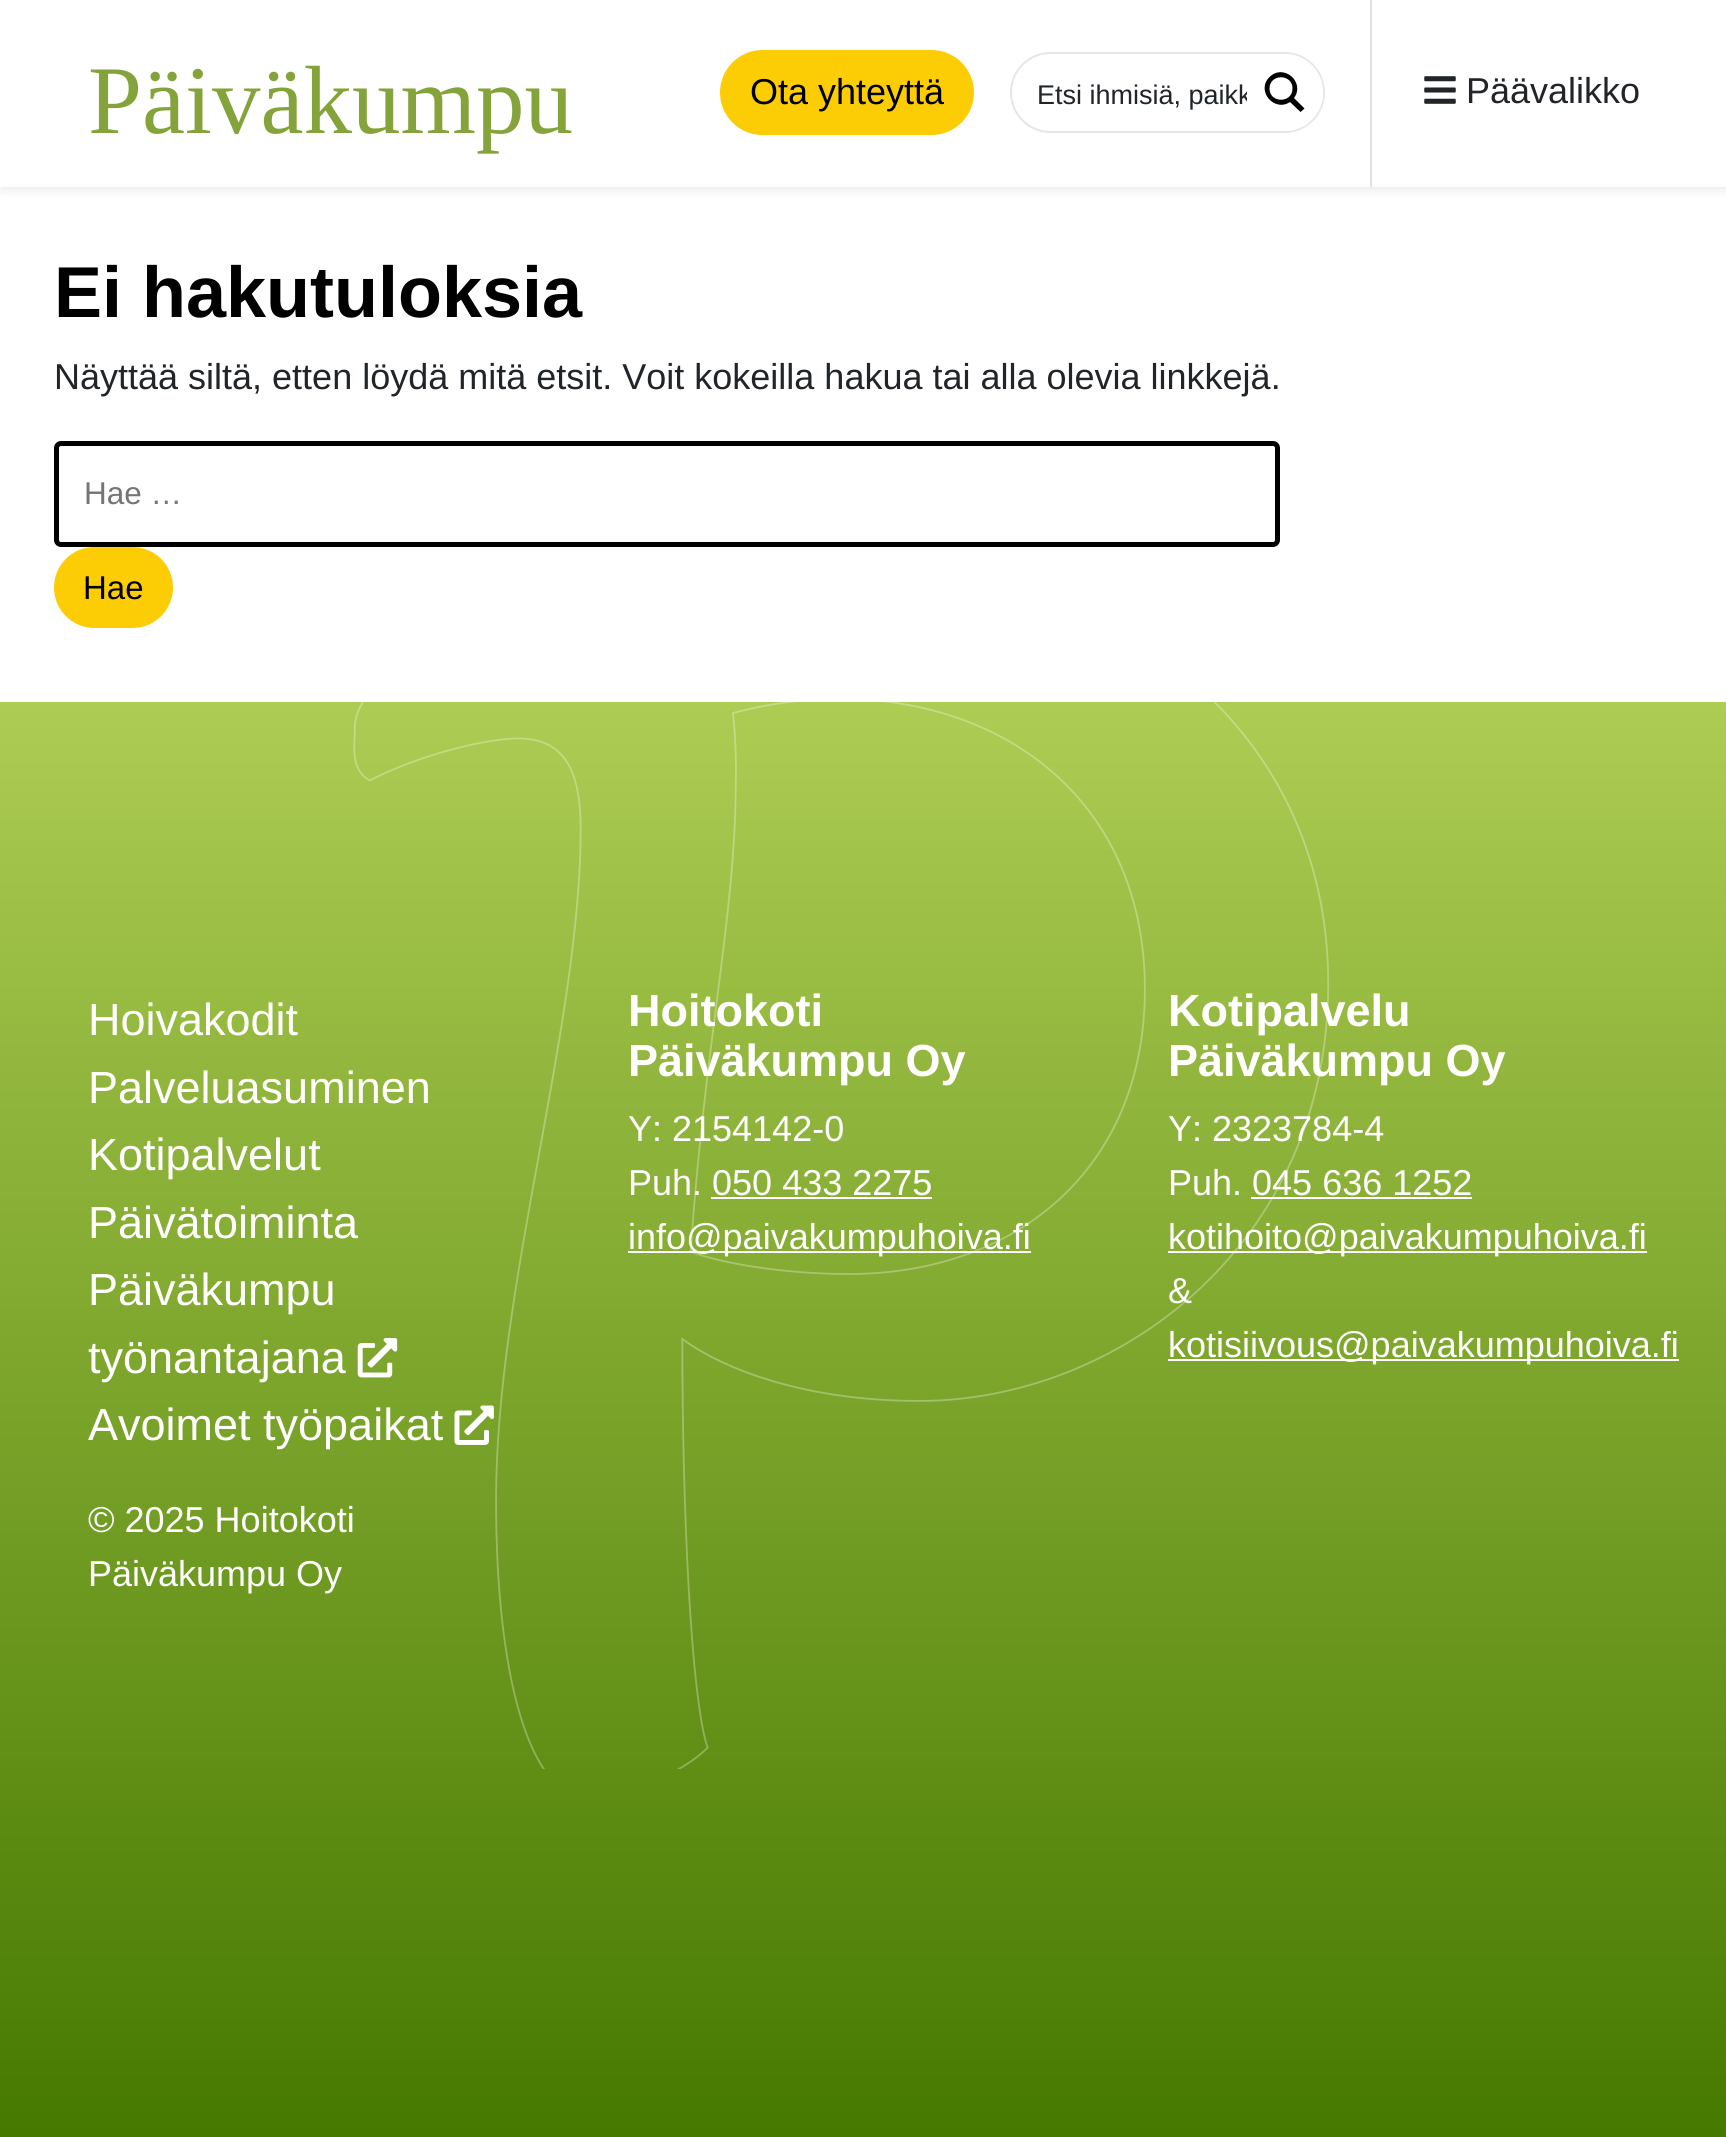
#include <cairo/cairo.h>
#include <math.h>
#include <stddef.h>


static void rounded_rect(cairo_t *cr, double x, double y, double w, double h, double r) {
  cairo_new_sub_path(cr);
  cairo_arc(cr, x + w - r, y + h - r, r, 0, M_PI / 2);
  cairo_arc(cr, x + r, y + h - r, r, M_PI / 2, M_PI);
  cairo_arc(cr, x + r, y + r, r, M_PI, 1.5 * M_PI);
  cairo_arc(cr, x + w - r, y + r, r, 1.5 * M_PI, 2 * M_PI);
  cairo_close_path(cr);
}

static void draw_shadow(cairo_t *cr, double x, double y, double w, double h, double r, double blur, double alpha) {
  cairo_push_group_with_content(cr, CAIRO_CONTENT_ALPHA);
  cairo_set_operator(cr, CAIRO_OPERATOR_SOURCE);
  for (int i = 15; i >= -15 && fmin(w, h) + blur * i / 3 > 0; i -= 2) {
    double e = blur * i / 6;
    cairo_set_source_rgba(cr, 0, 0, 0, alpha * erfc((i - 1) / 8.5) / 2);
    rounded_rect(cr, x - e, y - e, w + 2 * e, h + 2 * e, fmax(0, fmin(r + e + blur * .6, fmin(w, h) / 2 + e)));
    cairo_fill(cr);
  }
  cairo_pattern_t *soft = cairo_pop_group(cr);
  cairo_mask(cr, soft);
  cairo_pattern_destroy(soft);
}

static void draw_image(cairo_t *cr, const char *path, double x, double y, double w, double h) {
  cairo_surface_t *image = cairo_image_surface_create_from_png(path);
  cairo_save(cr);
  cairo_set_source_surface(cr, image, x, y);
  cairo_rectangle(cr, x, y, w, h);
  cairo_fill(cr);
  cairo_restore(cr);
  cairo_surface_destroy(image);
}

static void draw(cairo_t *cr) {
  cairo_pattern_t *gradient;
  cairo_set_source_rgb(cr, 1, 1, 1);
  cairo_paint(cr);
  cairo_set_source_rgb(cr, 0, 0, 0);
  draw_shadow(cr, 0, 5, 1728, 186, 0, 4.5, 0.07);
  cairo_set_source_rgb(cr, 1, 1, 1);
  cairo_rectangle(cr, 0, 0, 1726, 187);
  cairo_fill(cr);
  cairo_set_source_rgb(cr, 252 / 255.0, 204 / 255.0, 5 / 255.0);
  rounded_rect(cr, 721, 51, 252, 83, 41.5);
  cairo_fill_preserve(cr);
  cairo_stroke(cr);
  rounded_rect(cr, 1011, 53, 313, 79, 39.5);
  cairo_set_source_rgb(cr, 230 / 255.0, 230 / 255.0, 230 / 255.0);
  cairo_stroke(cr);
  cairo_set_source_rgb(cr, 222 / 255.0, 226 / 255.0, 230 / 255.0);
  cairo_rectangle(cr, 1370, 0, 2, 187);
  cairo_fill(cr);
  draw_image(cr, "images/1.png", 1424, 76, 32, 28);
  rounded_rect(cr, 56.5, 443.5, 1221, 101, 4.5);
  cairo_set_source_rgb(cr, 0, 0, 0);
  cairo_set_line_width(cr, 5);
  cairo_stroke(cr);
  cairo_set_source_rgb(cr, 252 / 255.0, 204 / 255.0, 5 / 255.0);
  rounded_rect(cr, 55, 548, 117, 79, 39.5);
  cairo_fill_preserve(cr);
  cairo_set_line_width(cr, 2);
  cairo_stroke(cr);
  gradient = cairo_pattern_create_linear(864, 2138, 864, 702);
  cairo_pattern_add_color_stop_rgba(gradient, 0, 70 / 255.0, 121 / 255.0, 0, 1);
  cairo_pattern_add_color_stop_rgba(gradient, 1, 173 / 255.0, 204 / 255.0, 83 / 255.0, 1);
  cairo_set_source(cr, gradient);
  cairo_pattern_destroy(gradient);
  cairo_rectangle(cr, 0, 702, 1726, 1435);
  cairo_fill(cr);
  draw_image(cr, "images/2.png", 353, 702, 977, 1067);
  draw_image(cr, "images/3.png", 357, 1338, 41, 40);
  draw_image(cr, "images/4.png", 454, 1405, 40, 40);
  cairo_set_source_rgb(cr, 1, 1, 1);
  cairo_rectangle(cr, 711, 1197, 221, 2);
  cairo_fill(cr);
  cairo_rectangle(cr, 628, 1251, 403, 2);
  cairo_fill(cr);
  cairo_rectangle(cr, 1251, 1197, 221, 2);
  cairo_fill(cr);
  cairo_rectangle(cr, 1168, 1251, 479, 2);
  cairo_fill(cr);
  cairo_rectangle(cr, 1168, 1359, 511, 2);
  cairo_fill(cr);
  cairo_select_font_face(cr, "Liberation Serif", CAIRO_FONT_SLANT_NORMAL, CAIRO_FONT_WEIGHT_NORMAL);
  cairo_set_font_size(cr, 97);
  cairo_set_source_rgb(cr, 133 / 255.0, 163 / 255.0, 59 / 255.0);
  cairo_move_to(cr, 88, 133);
  cairo_show_text(cr, "Päiväkumpu");
  cairo_select_font_face(cr, "Liberation Sans", CAIRO_FONT_SLANT_NORMAL, CAIRO_FONT_WEIGHT_NORMAL);
  cairo_set_font_size(cr, 36);
  cairo_set_source_rgb(cr, 0, 0, 0);
  cairo_move_to(cr, 750, 104);
  cairo_show_text(cr, "Ota yhteyttä");
  cairo_set_font_size(cr, 27);
  cairo_set_source_rgb(cr, 33 / 255.0, 37 / 255.0, 41 / 255.0);
  cairo_move_to(cr, 1037, 104);
  cairo_show_text(cr, "Etsi ihmisiä, paikk");
  cairo_set_source_rgb(cr, 1, 1, 1);
  cairo_new_path(cr);
  cairo_move_to(cr, 1247, 54);
  cairo_line_to(cr, 1284.5, 54);
  cairo_curve_to(cr, 1306, 54, 1323, 71, 1323, 92.5);
  cairo_curve_to(cr, 1323, 114, 1306, 131, 1284.5, 131);
  cairo_line_to(cr, 1247, 131);
  cairo_close_path(cr);
  cairo_fill(cr);
  cairo_set_source_rgb(cr, 0, 0, 0);
  cairo_new_path(cr);
  cairo_move_to(cr, 1304.5, 108.5);
  cairo_line_to(cr, 1294, 98);
  cairo_curve_to(cr, 1305.5, 82.5, 1284, 63, 1269.5, 77);
  cairo_curve_to(cr, 1255.5, 91, 1274.5, 112.5, 1290, 102);
  cairo_line_to(cr, 1300.5, 112);
  cairo_close_path(cr);
  cairo_move_to(cr, 1269.5, 88.5);
  cairo_curve_to(cr, 1269.5, 73.5, 1292.5, 73.5, 1292.5, 88.5);
  cairo_curve_to(cr, 1292.5, 103.5, 1269.5, 103.5, 1269.5, 88.5);
  cairo_close_path(cr);
  cairo_fill(cr);
  cairo_set_font_size(cr, 36);
  cairo_set_source_rgb(cr, 33 / 255.0, 37 / 255.0, 41 / 255.0);
  cairo_move_to(cr, 1466, 103);
  cairo_show_text(cr, "Päävalikko");
  cairo_select_font_face(cr, "Liberation Sans", CAIRO_FONT_SLANT_NORMAL, CAIRO_FONT_WEIGHT_BOLD);
  cairo_set_font_size(cr, 72);
  cairo_set_source_rgb(cr, 0, 0, 0);
  cairo_move_to(cr, 54, 317);
  cairo_show_text(cr, "Ei hakutuloksia");
  cairo_select_font_face(cr, "Liberation Sans", CAIRO_FONT_SLANT_NORMAL, CAIRO_FONT_WEIGHT_NORMAL);
  cairo_set_font_size(cr, 36);
  cairo_set_source_rgb(cr, 33 / 255.0, 37 / 255.0, 41 / 255.0);
  cairo_move_to(cr, 54, 389);
  cairo_show_text(cr, "Näyttää siltä, etten löydä mitä etsit. Voit kokeilla hakua tai alla olevia linkkejä.");
  cairo_set_font_size(cr, 31.5);
  cairo_set_source_rgb(cr, 117 / 255.0, 117 / 255.0, 117 / 255.0);
  cairo_move_to(cr, 84, 504);
  cairo_show_text(cr, "Hae …");
  cairo_set_font_size(cr, 33);
  cairo_set_source_rgb(cr, 0, 0, 0);
  cairo_move_to(cr, 83, 599);
  cairo_show_text(cr, "Hae");
  cairo_set_font_size(cr, 45);
  cairo_set_source_rgb(cr, 1, 1, 1);
  cairo_move_to(cr, 88, 1035);
  cairo_show_text(cr, "Hoivakodit");
  cairo_move_to(cr, 88, 1103);
  cairo_show_text(cr, "Palveluasuminen");
  cairo_move_to(cr, 88, 1170);
  cairo_show_text(cr, "Kotipalvelut");
  cairo_move_to(cr, 88, 1238);
  cairo_show_text(cr, "Päivätoiminta");
  cairo_move_to(cr, 88, 1305);
  cairo_show_text(cr, "Päiväkumpu");
  cairo_move_to(cr, 88, 1373);
  cairo_show_text(cr, "työnantajana");
  cairo_move_to(cr, 88, 1440);
  cairo_show_text(cr, "Avoimet työpaikat");
  cairo_set_font_size(cr, 36);
  cairo_move_to(cr, 88, 1532);
  cairo_show_text(cr, "© 2025 Hoitokoti");
  cairo_move_to(cr, 88, 1586);
  cairo_show_text(cr, "Päiväkumpu Oy");
  cairo_select_font_face(cr, "Liberation Sans", CAIRO_FONT_SLANT_NORMAL, CAIRO_FONT_WEIGHT_BOLD);
  cairo_set_font_size(cr, 45);
  cairo_move_to(cr, 628, 1026);
  cairo_show_text(cr, "Hoitokoti");
  cairo_move_to(cr, 628, 1076);
  cairo_show_text(cr, "Päiväkumpu Oy");
  cairo_select_font_face(cr, "Liberation Sans", CAIRO_FONT_SLANT_NORMAL, CAIRO_FONT_WEIGHT_NORMAL);
  cairo_set_font_size(cr, 36);
  cairo_move_to(cr, 628, 1141);
  cairo_show_text(cr, "Y: 2154142-0");
  cairo_move_to(cr, 628, 1195);
  cairo_show_text(cr, "Puh. 050 433 2275");
  cairo_move_to(cr, 628, 1249);
  cairo_show_text(cr, "info@paivakumpuhoiva.fi");
  cairo_select_font_face(cr, "Liberation Sans", CAIRO_FONT_SLANT_NORMAL, CAIRO_FONT_WEIGHT_BOLD);
  cairo_set_font_size(cr, 45);
  cairo_move_to(cr, 1168, 1026);
  cairo_show_text(cr, "Kotipalvelu");
  cairo_move_to(cr, 1168, 1076);
  cairo_show_text(cr, "Päiväkumpu Oy");
  cairo_select_font_face(cr, "Liberation Sans", CAIRO_FONT_SLANT_NORMAL, CAIRO_FONT_WEIGHT_NORMAL);
  cairo_set_font_size(cr, 36);
  cairo_move_to(cr, 1168, 1141);
  cairo_show_text(cr, "Y: 2323784-4");
  cairo_move_to(cr, 1168, 1195);
  cairo_show_text(cr, "Puh. 045 636 1252");
  cairo_move_to(cr, 1168, 1249);
  cairo_show_text(cr, "kotihoito@paivakumpuhoiva.fi");
  cairo_move_to(cr, 1168, 1303);
  cairo_show_text(cr, "&");
  cairo_move_to(cr, 1168, 1357);
  cairo_show_text(cr, "kotisiivous@paivakumpuhoiva.fi");
}

int main(void) {
  cairo_surface_t *surface = cairo_image_surface_create(CAIRO_FORMAT_RGB24, 1726, 2137);
  cairo_t *cr = cairo_create(surface);
  cairo_font_options_t *options = cairo_font_options_create();
  cairo_font_options_set_hint_metrics(options, CAIRO_HINT_METRICS_OFF);
  cairo_font_options_set_hint_style(options, CAIRO_HINT_STYLE_NONE);
  cairo_set_font_options(cr, options);
  cairo_set_miter_limit(cr, 4);
  draw(cr);
  cairo_surface_write_to_png(surface, "out.png");
  cairo_font_options_destroy(options);
  cairo_destroy(cr);
  cairo_surface_destroy(surface);
  return 0;
}
